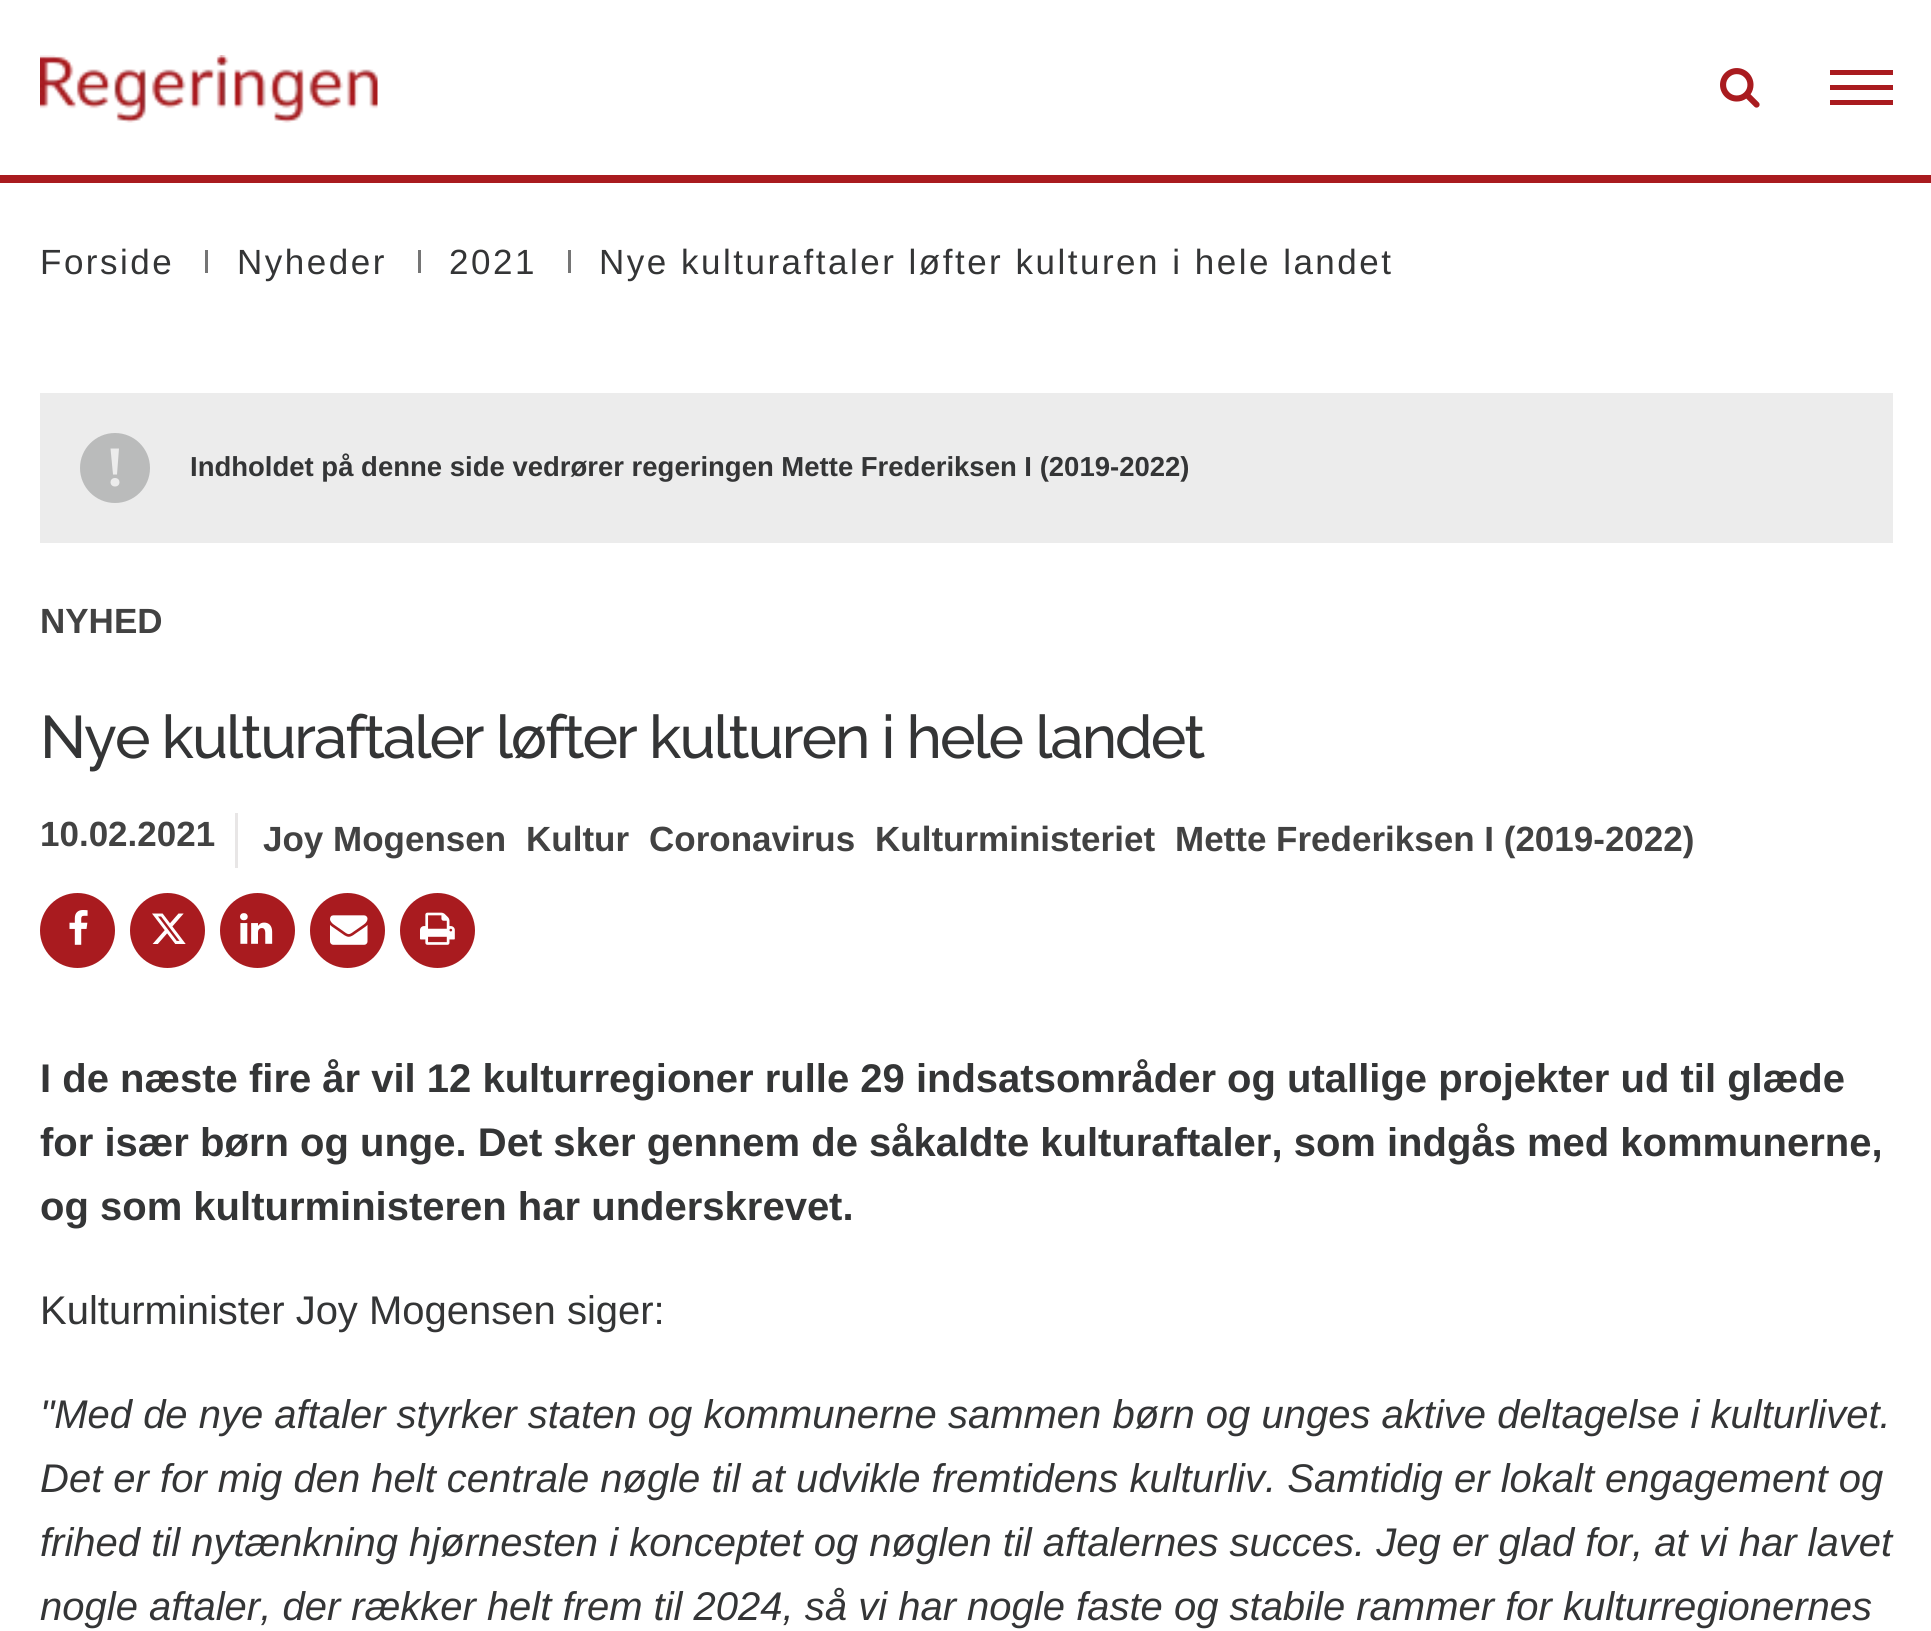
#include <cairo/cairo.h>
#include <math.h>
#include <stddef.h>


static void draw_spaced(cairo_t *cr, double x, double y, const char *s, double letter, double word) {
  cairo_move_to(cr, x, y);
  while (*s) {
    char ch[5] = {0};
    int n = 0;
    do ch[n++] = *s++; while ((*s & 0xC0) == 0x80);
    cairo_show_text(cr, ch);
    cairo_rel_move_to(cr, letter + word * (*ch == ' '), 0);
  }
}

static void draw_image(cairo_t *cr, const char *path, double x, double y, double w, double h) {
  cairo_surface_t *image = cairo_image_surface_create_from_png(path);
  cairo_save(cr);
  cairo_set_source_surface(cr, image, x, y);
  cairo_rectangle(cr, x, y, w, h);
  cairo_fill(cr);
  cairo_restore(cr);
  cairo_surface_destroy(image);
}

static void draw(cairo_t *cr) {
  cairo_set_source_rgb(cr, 1, 1, 1);
  cairo_paint(cr);
  cairo_set_source_rgb(cr, 169 / 255.0, 27 / 255.0, 31 / 255.0);
  cairo_rectangle(cr, 0, 175, 1931, 8);
  cairo_fill(cr);
  draw_image(cr, "images/1.png", 40, 55, 338, 68);
  draw_image(cr, "images/2.png", 1720, 68, 40, 40);
  cairo_rectangle(cr, 1830, 85, 63, 5);
  cairo_fill(cr);
  cairo_rectangle(cr, 1830, 70, 63, 5);
  cairo_fill(cr);
  cairo_rectangle(cr, 1830, 100, 63, 5);
  cairo_fill(cr);
  cairo_set_source_rgb(cr, 117 / 255.0, 117 / 255.0, 117 / 255.0);
  cairo_rectangle(cr, 205, 250, 3, 23);
  cairo_fill(cr);
  cairo_rectangle(cr, 418, 250, 3, 23);
  cairo_fill(cr);
  cairo_rectangle(cr, 568, 250, 3, 23);
  cairo_fill(cr);
  cairo_set_source_rgb(cr, 236 / 255.0, 236 / 255.0, 236 / 255.0);
  cairo_rectangle(cr, 40, 393, 1853, 150);
  cairo_fill(cr);
  cairo_set_source_rgb(cr, 186 / 255.0, 187 / 255.0, 187 / 255.0);
  cairo_arc(cr, 115, 468, 35, 0, 2 * M_PI);
  cairo_fill(cr);
  cairo_set_source_rgb(cr, 236 / 255.0, 236 / 255.0, 236 / 255.0);
  cairo_new_path(cr);
  cairo_move_to(cr, 115, 486.5);
  cairo_curve_to(cr, 109, 486.5, 109, 478, 115, 478);
  cairo_curve_to(cr, 121, 478, 121, 486.5, 115, 486.5);
  cairo_close_path(cr);
  cairo_move_to(cr, 113, 474.5);
  cairo_line_to(cr, 110.5, 448.5);
  cairo_line_to(cr, 119, 448.5);
  cairo_line_to(cr, 117, 474.5);
  cairo_close_path(cr);
  cairo_fill(cr);
  cairo_set_source_rgb(cr, 232 / 255.0, 230 / 255.0, 230 / 255.0);
  cairo_rectangle(cr, 235, 813, 3, 55);
  cairo_fill(cr);
  cairo_set_source_rgb(cr, 169 / 255.0, 27 / 255.0, 31 / 255.0);
  cairo_arc(cr, 77.5, 930.5, 37.5, 0, 2 * M_PI);
  cairo_fill(cr);
  draw_image(cr, "images/3.png", 69, 910, 19, 35);
  cairo_arc(cr, 167.5, 930.5, 37.5, 0, 2 * M_PI);
  cairo_fill(cr);
  draw_image(cr, "images/4.png", 152, 913, 34, 31);
  cairo_arc(cr, 257.5, 930.5, 37.5, 0, 2 * M_PI);
  cairo_fill(cr);
  draw_image(cr, "images/5.png", 240, 913, 33, 31);
  cairo_arc(cr, 347.5, 930.5, 37.5, 0, 2 * M_PI);
  cairo_fill(cr);
  draw_image(cr, "images/6.png", 330, 915, 38, 30);
  cairo_arc(cr, 437.5, 930.5, 37.5, 0, 2 * M_PI);
  cairo_fill(cr);
  draw_image(cr, "images/7.png", 420, 912, 35, 33);
  cairo_select_font_face(cr, "Liberation Sans", CAIRO_FONT_SLANT_NORMAL, CAIRO_FONT_WEIGHT_NORMAL);
  cairo_set_font_size(cr, 35);
  cairo_set_source_rgb(cr, 52 / 255.0, 53 / 255.0, 54 / 255.0);
  draw_spaced(cr, 40, 274, "Forside", 2.5, 0);
  draw_spaced(cr, 237, 274, "Nyheder", 2.5, 0);
  draw_spaced(cr, 449, 274, "2021", 2.5, 0);
  draw_spaced(cr, 599, 274, "Nye kulturaftaler løfter kulturen i hele landet", 2.5, 0);
  cairo_select_font_face(cr, "Liberation Sans", CAIRO_FONT_SLANT_NORMAL, CAIRO_FONT_WEIGHT_BOLD);
  cairo_set_font_size(cr, 27.5);
  cairo_move_to(cr, 190, 476);
  cairo_show_text(cr, "Indholdet på denne side vedrører regeringen Mette Frederiksen I (2019-2022)");
  cairo_set_font_size(cr, 35);
  cairo_set_source_rgb(cr, 66 / 255.0, 66 / 255.0, 66 / 255.0);
  cairo_move_to(cr, 40, 633);
  cairo_show_text(cr, "NYHED");
  cairo_select_font_face(cr, "Raleway Medium", CAIRO_FONT_SLANT_NORMAL, CAIRO_FONT_WEIGHT_NORMAL);
  cairo_set_font_size(cr, 60);
  cairo_set_source_rgb(cr, 52 / 255.0, 53 / 255.0, 54 / 255.0);
  draw_spaced(cr, 40, 758, "Nye kulturaftaler løfter kulturen i hele landet", -2, 0);
  cairo_select_font_face(cr, "Liberation Sans", CAIRO_FONT_SLANT_NORMAL, CAIRO_FONT_WEIGHT_BOLD);
  cairo_set_font_size(cr, 35);
  cairo_set_source_rgb(cr, 66 / 255.0, 66 / 255.0, 66 / 255.0);
  cairo_move_to(cr, 40, 846);
  cairo_show_text(cr, "10.02.2021");
  cairo_move_to(cr, 263, 851);
  cairo_show_text(cr, "Joy Mogensen");
  cairo_move_to(cr, 526, 851);
  cairo_show_text(cr, "Kultur");
  cairo_move_to(cr, 649, 851);
  cairo_show_text(cr, "Coronavirus");
  cairo_move_to(cr, 875, 851);
  cairo_show_text(cr, "Kulturministeriet");
  cairo_move_to(cr, 1175, 851);
  cairo_show_text(cr, "Mette Frederiksen I (2019-2022)");
  cairo_set_font_size(cr, 40);
  cairo_set_source_rgb(cr, 52 / 255.0, 53 / 255.0, 54 / 255.0);
  cairo_move_to(cr, 40, 1092);
  cairo_show_text(cr, "I de næste fire år vil 12 kulturregioner rulle 29 indsatsområder og utallige projekter ud til glæde");
  cairo_move_to(cr, 40, 1156);
  cairo_show_text(cr, "for især børn og unge. Det sker gennem de såkaldte kulturaftaler, som indgås med kommunerne,");
  cairo_move_to(cr, 40, 1220);
  cairo_show_text(cr, "og som kulturministeren har underskrevet.");
  cairo_select_font_face(cr, "Liberation Sans", CAIRO_FONT_SLANT_NORMAL, CAIRO_FONT_WEIGHT_NORMAL);
  cairo_move_to(cr, 40, 1324);
  cairo_show_text(cr, "Kulturminister Joy Mogensen siger:");
  cairo_select_font_face(cr, "Liberation Sans", CAIRO_FONT_SLANT_ITALIC, CAIRO_FONT_WEIGHT_NORMAL);
  cairo_move_to(cr, 40, 1428);
  cairo_show_text(cr, "\"Med de nye aftaler styrker staten og kommunerne sammen børn og unges aktive deltagelse i kulturlivet.");
  cairo_move_to(cr, 40, 1492);
  cairo_show_text(cr, "Det er for mig den helt centrale nøgle til at udvikle fremtidens kulturliv. Samtidig er lokalt engagement og");
  cairo_move_to(cr, 40, 1556);
  cairo_show_text(cr, "frihed til nytænkning hjørnesten i konceptet og nøglen til aftalernes succes. Jeg er glad for, at vi har lavet");
  cairo_move_to(cr, 40, 1620);
  cairo_show_text(cr, "nogle aftaler, der rækker helt frem til 2024, så vi har nogle faste og stabile rammer for kulturregionernes");
}

int main(void) {
  cairo_surface_t *surface = cairo_image_surface_create(CAIRO_FORMAT_RGB24, 1931, 1631);
  cairo_t *cr = cairo_create(surface);
  cairo_font_options_t *options = cairo_font_options_create();
  cairo_font_options_set_hint_metrics(options, CAIRO_HINT_METRICS_OFF);
  cairo_font_options_set_hint_style(options, CAIRO_HINT_STYLE_NONE);
  cairo_set_font_options(cr, options);
  cairo_set_miter_limit(cr, 4);
  draw(cr);
  cairo_surface_write_to_png(surface, "out.png");
  cairo_font_options_destroy(options);
  cairo_destroy(cr);
  cairo_surface_destroy(surface);
  return 0;
}
